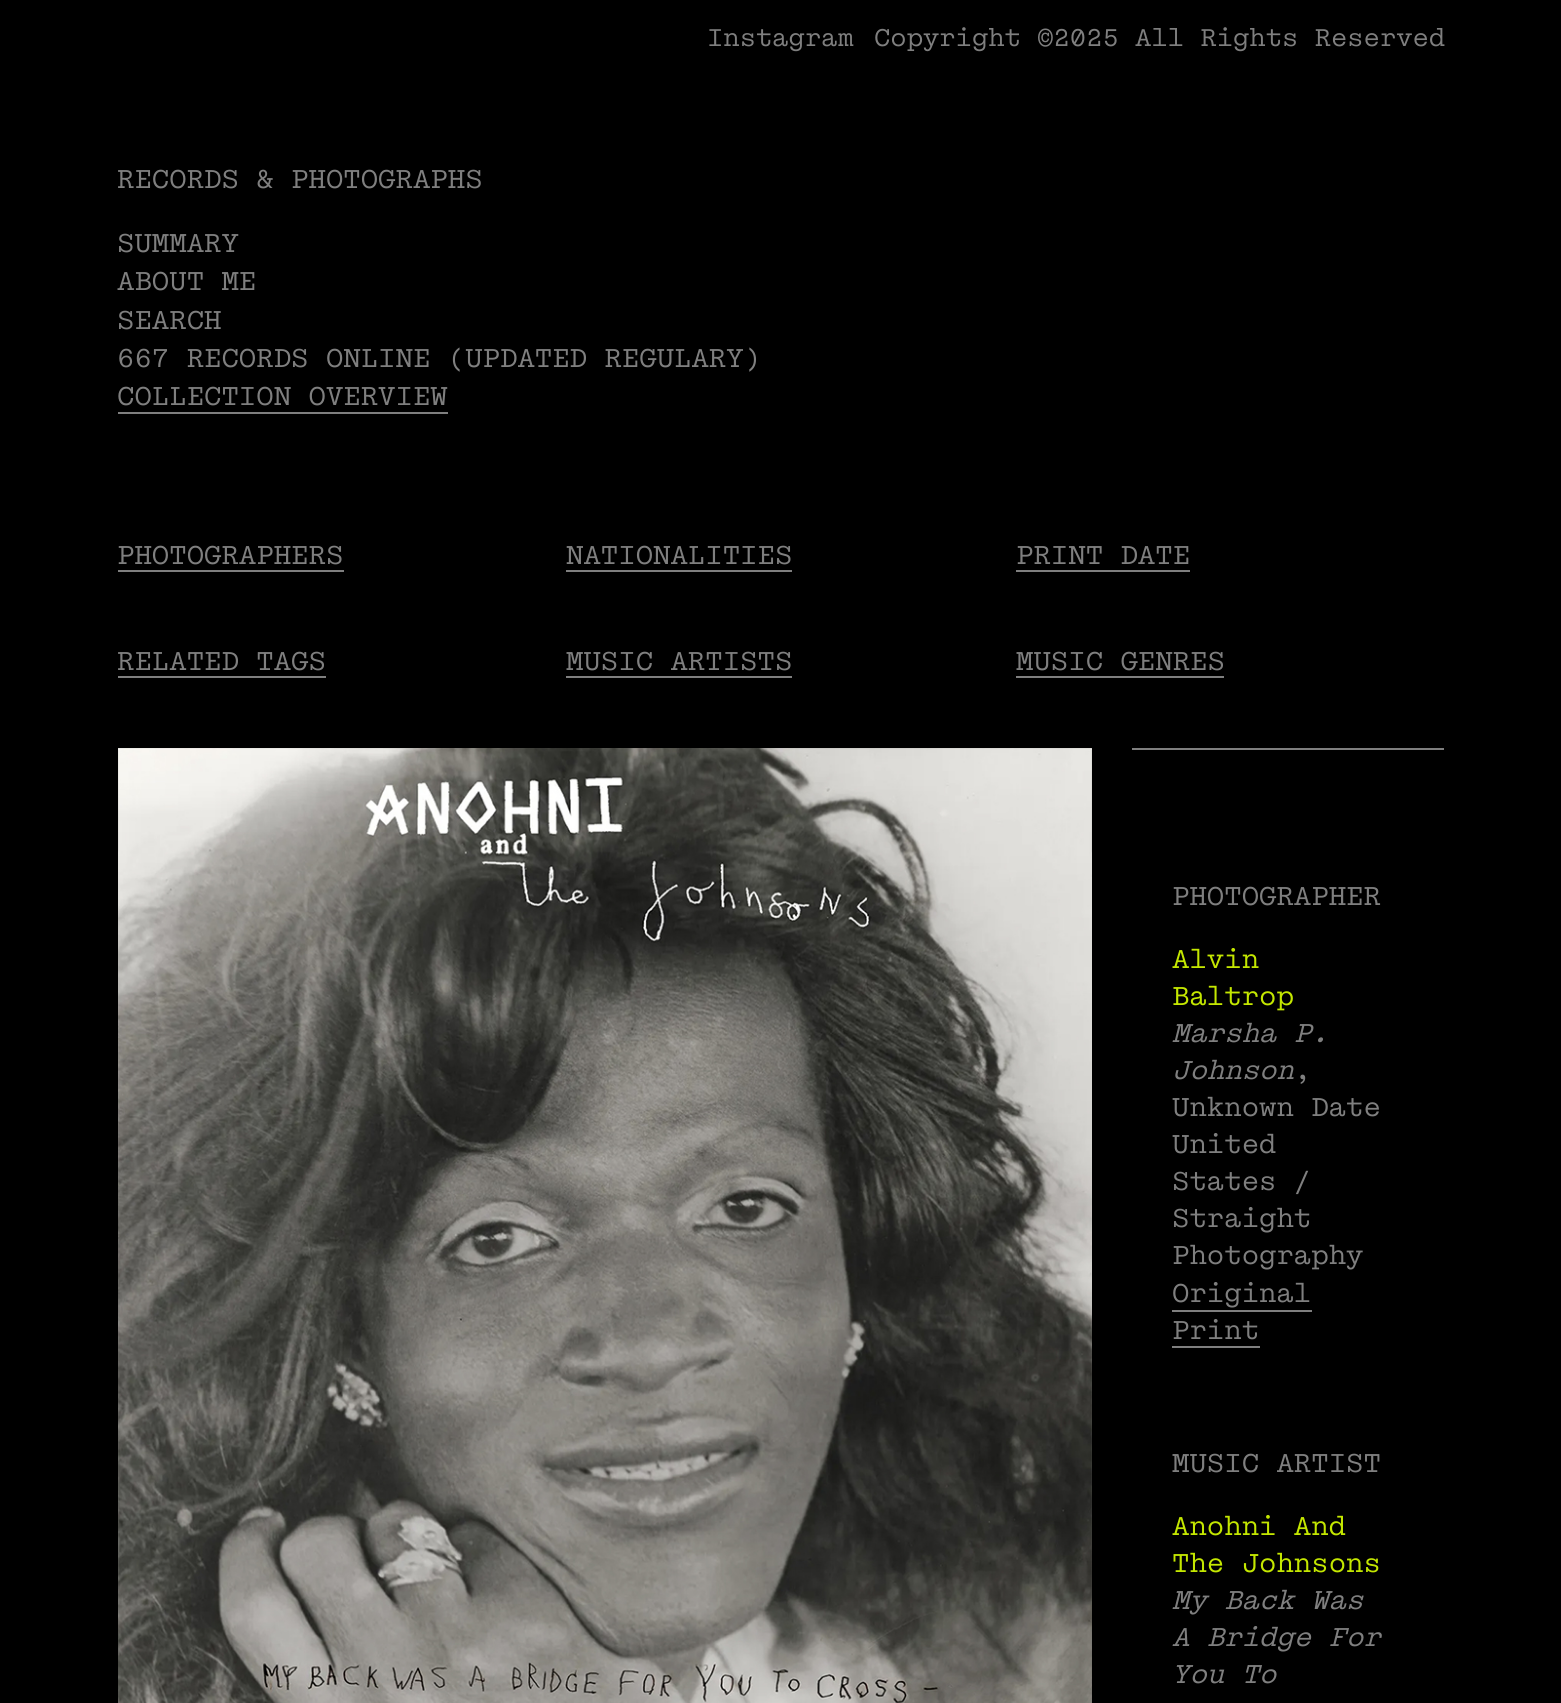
#include <cairo/cairo.h>
#include <math.h>
#include <stddef.h>


static void draw_image(cairo_t *cr, const char *path, double x, double y, double w, double h) {
  cairo_surface_t *image = cairo_image_surface_create_from_png(path);
  cairo_save(cr);
  cairo_set_source_surface(cr, image, x, y);
  cairo_rectangle(cr, x, y, w, h);
  cairo_fill(cr);
  cairo_restore(cr);
  cairo_surface_destroy(image);
}

static void draw(cairo_t *cr) {
  cairo_set_source_rgb(cr, 0, 0, 0);
  cairo_paint(cr);
  cairo_set_source_rgb(cr, 127 / 255.0, 127 / 255.0, 127 / 255.0);
  cairo_rectangle(cr, 118, 412, 330, 2);
  cairo_fill(cr);
  cairo_rectangle(cr, 118, 570, 226, 2);
  cairo_fill(cr);
  cairo_rectangle(cr, 566, 570, 226, 2);
  cairo_fill(cr);
  cairo_rectangle(cr, 1016, 570, 174, 2);
  cairo_fill(cr);
  cairo_rectangle(cr, 118, 676, 208, 2);
  cairo_fill(cr);
  cairo_rectangle(cr, 566, 676, 226, 2);
  cairo_fill(cr);
  cairo_rectangle(cr, 1016, 676, 208, 2);
  cairo_fill(cr);
  draw_image(cr, "images/1.png", 118, 748, 974, 955);
  cairo_rectangle(cr, 1132, 748, 312, 2);
  cairo_fill(cr);
  cairo_rectangle(cr, 1172, 1310, 140, 2);
  cairo_fill(cr);
  cairo_rectangle(cr, 1172, 1346, 88, 2);
  cairo_fill(cr);
  cairo_select_font_face(cr, "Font", CAIRO_FONT_SLANT_NORMAL, CAIRO_FONT_WEIGHT_NORMAL);
  cairo_set_font_size(cr, 24);
  cairo_move_to(cr, 707, 46);
  cairo_show_text(cr, "Instagram");
  cairo_move_to(cr, 874, 46);
  cairo_show_text(cr, "Copyright ©2025 All Rights Reserved");
  cairo_set_font_size(cr, 25.6);
  cairo_move_to(cr, 117, 188);
  cairo_show_text(cr, "RECORDS & PHOTOGRAPHS");
  cairo_move_to(cr, 117, 252);
  cairo_show_text(cr, "SUMMARY");
  cairo_move_to(cr, 117, 290);
  cairo_show_text(cr, "ABOUT ME");
  cairo_move_to(cr, 117, 329);
  cairo_show_text(cr, "SEARCH");
  cairo_move_to(cr, 117, 367);
  cairo_show_text(cr, "667 RECORDS ONLINE (UPDATED REGULARY)");
  cairo_move_to(cr, 117, 405);
  cairo_show_text(cr, "COLLECTION OVERVIEW");
  cairo_move_to(cr, 117, 564);
  cairo_show_text(cr, "PHOTOGRAPHERS");
  cairo_move_to(cr, 566, 564);
  cairo_show_text(cr, "NATIONALITIES");
  cairo_move_to(cr, 1016, 564);
  cairo_show_text(cr, "PRINT DATE");
  cairo_move_to(cr, 117, 670);
  cairo_show_text(cr, "RELATED TAGS");
  cairo_move_to(cr, 566, 670);
  cairo_show_text(cr, "MUSIC ARTISTS");
  cairo_move_to(cr, 1016, 670);
  cairo_show_text(cr, "MUSIC GENRES");
  cairo_move_to(cr, 1172, 905);
  cairo_show_text(cr, "PHOTOGRAPHER");
  cairo_set_source_rgb(cr, 196 / 255.0, 231 / 255.0, 0);
  cairo_move_to(cr, 1172, 968);
  cairo_show_text(cr, "Alvin");
  cairo_move_to(cr, 1172, 1005);
  cairo_show_text(cr, "Baltrop");
  cairo_select_font_face(cr, "Font", CAIRO_FONT_SLANT_ITALIC, CAIRO_FONT_WEIGHT_NORMAL);
  cairo_set_source_rgb(cr, 127 / 255.0, 127 / 255.0, 127 / 255.0);
  cairo_move_to(cr, 1172, 1042);
  cairo_show_text(cr, "Marsha P.");
  cairo_move_to(cr, 1172, 1079);
  cairo_show_text(cr, "Johnson");
  cairo_select_font_face(cr, "Font", CAIRO_FONT_SLANT_NORMAL, CAIRO_FONT_WEIGHT_NORMAL);
  cairo_move_to(cr, 1294, 1079);
  cairo_show_text(cr, ",");
  cairo_move_to(cr, 1172, 1116);
  cairo_show_text(cr, "Unknown Date");
  cairo_move_to(cr, 1172, 1153);
  cairo_show_text(cr, "United");
  cairo_move_to(cr, 1172, 1190);
  cairo_show_text(cr, "States /");
  cairo_move_to(cr, 1172, 1227);
  cairo_show_text(cr, "Straight");
  cairo_move_to(cr, 1172, 1264);
  cairo_show_text(cr, "Photography");
  cairo_move_to(cr, 1172, 1302);
  cairo_show_text(cr, "Original");
  cairo_move_to(cr, 1172, 1339);
  cairo_show_text(cr, "Print");
  cairo_move_to(cr, 1172, 1472);
  cairo_show_text(cr, "MUSIC ARTIST");
  cairo_set_source_rgb(cr, 196 / 255.0, 231 / 255.0, 0);
  cairo_move_to(cr, 1172, 1535);
  cairo_show_text(cr, "Anohni And");
  cairo_move_to(cr, 1172, 1572);
  cairo_show_text(cr, "The Johnsons");
  cairo_select_font_face(cr, "Font", CAIRO_FONT_SLANT_ITALIC, CAIRO_FONT_WEIGHT_NORMAL);
  cairo_set_source_rgb(cr, 127 / 255.0, 127 / 255.0, 127 / 255.0);
  cairo_move_to(cr, 1172, 1609);
  cairo_show_text(cr, "My Back Was");
  cairo_move_to(cr, 1172, 1646);
  cairo_show_text(cr, "A Bridge For");
  cairo_move_to(cr, 1172, 1683);
  cairo_show_text(cr, "You To");
}

int main(void) {
  cairo_surface_t *surface = cairo_image_surface_create(CAIRO_FORMAT_RGB24, 1561, 1703);
  cairo_t *cr = cairo_create(surface);
  cairo_font_options_t *options = cairo_font_options_create();
  cairo_font_options_set_hint_metrics(options, CAIRO_HINT_METRICS_OFF);
  cairo_font_options_set_hint_style(options, CAIRO_HINT_STYLE_NONE);
  cairo_set_font_options(cr, options);
  cairo_set_miter_limit(cr, 4);
  draw(cr);
  cairo_surface_write_to_png(surface, "out.png");
  cairo_font_options_destroy(options);
  cairo_destroy(cr);
  cairo_surface_destroy(surface);
  return 0;
}
